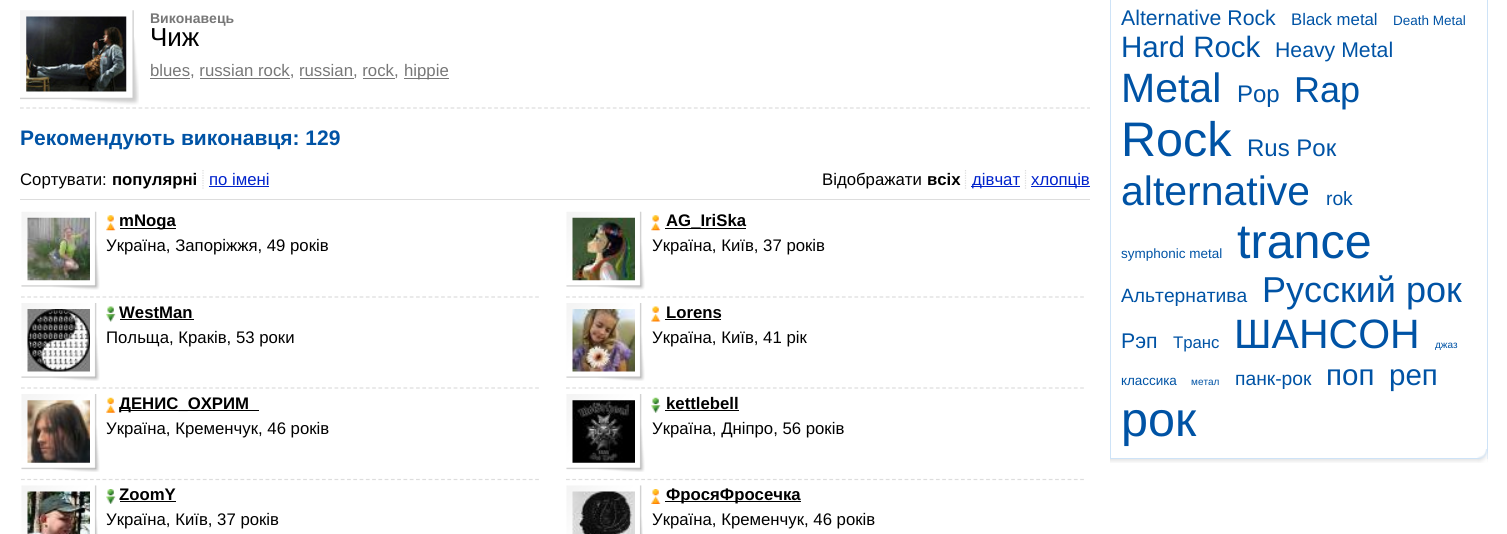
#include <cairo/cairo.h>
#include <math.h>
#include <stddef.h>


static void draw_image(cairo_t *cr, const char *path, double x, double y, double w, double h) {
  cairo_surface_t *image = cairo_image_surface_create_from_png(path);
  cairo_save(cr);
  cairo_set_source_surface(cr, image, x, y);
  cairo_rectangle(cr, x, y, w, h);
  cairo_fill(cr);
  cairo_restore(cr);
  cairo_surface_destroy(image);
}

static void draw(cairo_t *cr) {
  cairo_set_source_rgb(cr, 1, 1, 1);
  cairo_paint(cr);
  cairo_new_path(cr);
  cairo_move_to(cr, 20, 108);
  cairo_line_to(cr, 1090, 108);
  cairo_set_source_rgb(cr, 221 / 255.0, 221 / 255.0, 221 / 255.0);
  cairo_set_line_width(cr, 1.2);
  cairo_set_dash(cr, (double[]){3.75, 2.49}, 2, 0);
  cairo_stroke(cr);
  draw_image(cr, "images/1.png", 20, 10, 119, 95);
  draw_image(cr, "images/2.png", 26, 16, 101, 76);
  cairo_set_source_rgb(cr, 119 / 255.0, 119 / 255.0, 119 / 255.0);
  cairo_rectangle(cr, 150, 78, 40, 1);
  cairo_fill(cr);
  cairo_rectangle(cr, 404, 78, 45, 1);
  cairo_fill(cr);
  cairo_rectangle(cr, 200, 78, 90, 1);
  cairo_fill(cr);
  cairo_rectangle(cr, 300, 78, 54, 1);
  cairo_fill(cr);
  cairo_rectangle(cr, 363, 78, 32, 1);
  cairo_fill(cr);
  cairo_new_path(cr);
  cairo_move_to(cr, 203, 170);
  cairo_line_to(cr, 203, 189);
  cairo_set_source_rgb(cr, 221 / 255.0, 221 / 255.0, 221 / 255.0);
  cairo_set_dash(cr, (double[]){1.25, 1.25}, 2, 0);
  cairo_stroke(cr);
  cairo_set_source_rgb(cr, 0, 34 / 255.0, 204 / 255.0);
  cairo_rectangle(cr, 209, 186, 60, 1);
  cairo_fill(cr);
  cairo_new_path(cr);
  cairo_move_to(cr, 965.5, 170);
  cairo_line_to(cr, 965.5, 189);
  cairo_set_source_rgb(cr, 221 / 255.0, 221 / 255.0, 221 / 255.0);
  cairo_stroke(cr);
  cairo_new_path(cr);
  cairo_move_to(cr, 1025.5, 170);
  cairo_line_to(cr, 1025.5, 189);
  cairo_stroke(cr);
  cairo_set_source_rgb(cr, 0, 34 / 255.0, 204 / 255.0);
  cairo_rectangle(cr, 971, 186, 49, 1);
  cairo_fill(cr);
  cairo_rectangle(cr, 1031, 186, 59, 1);
  cairo_fill(cr);
  cairo_set_source_rgb(cr, 221 / 255.0, 221 / 255.0, 221 / 255.0);
  cairo_rectangle(cr, 20, 199, 1070, 1);
  cairo_fill(cr);
  cairo_new_path(cr);
  cairo_move_to(cr, 21, 297);
  cairo_line_to(cr, 540, 297);
  cairo_set_dash(cr, (double[]){3.75, 2.52}, 2, 0);
  cairo_stroke(cr);
  draw_image(cr, "images/3.png", 21, 211, 79, 79);
  draw_image(cr, "images/4.png", 27, 217, 63, 64);
  draw_image(cr, "images/5.png", 106, 215, 10, 16);
  cairo_set_source_rgb(cr, 0, 0, 0);
  cairo_rectangle(cr, 120, 228, 56, 1);
  cairo_fill(cr);
  cairo_new_path(cr);
  cairo_move_to(cr, 566, 297);
  cairo_line_to(cr, 1085, 297);
  cairo_set_source_rgb(cr, 221 / 255.0, 221 / 255.0, 221 / 255.0);
  cairo_stroke(cr);
  draw_image(cr, "images/3.png", 566, 211, 79, 79);
  draw_image(cr, "images/6.png", 572, 217, 63, 64);
  draw_image(cr, "images/5.png", 651, 215, 10, 16);
  cairo_set_source_rgb(cr, 0, 0, 0);
  cairo_rectangle(cr, 665, 228, 81, 1);
  cairo_fill(cr);
  cairo_new_path(cr);
  cairo_move_to(cr, 21, 388);
  cairo_line_to(cr, 540, 388);
  cairo_set_source_rgb(cr, 221 / 255.0, 221 / 255.0, 221 / 255.0);
  cairo_stroke(cr);
  draw_image(cr, "images/7.png", 21, 303, 79, 78);
  draw_image(cr, "images/8.png", 27, 309, 63, 63);
  draw_image(cr, "images/9.png", 106, 306, 10, 16);
  cairo_set_source_rgb(cr, 0, 0, 0);
  cairo_rectangle(cr, 120, 319, 74, 1);
  cairo_fill(cr);
  cairo_new_path(cr);
  cairo_move_to(cr, 566, 388);
  cairo_line_to(cr, 1085, 388);
  cairo_set_source_rgb(cr, 221 / 255.0, 221 / 255.0, 221 / 255.0);
  cairo_stroke(cr);
  draw_image(cr, "images/7.png", 566, 303, 79, 78);
  draw_image(cr, "images/10.png", 572, 309, 63, 63);
  draw_image(cr, "images/11.png", 651, 306, 10, 16);
  cairo_set_source_rgb(cr, 0, 0, 0);
  cairo_rectangle(cr, 665, 319, 56, 1);
  cairo_fill(cr);
  cairo_new_path(cr);
  cairo_move_to(cr, 21, 479.5);
  cairo_line_to(cr, 540, 479.5);
  cairo_set_source_rgb(cr, 221 / 255.0, 221 / 255.0, 221 / 255.0);
  cairo_stroke(cr);
  draw_image(cr, "images/12.png", 21, 394, 79, 78);
  draw_image(cr, "images/13.png", 27, 400, 63, 63);
  draw_image(cr, "images/14.png", 106, 397, 10, 16);
  cairo_set_source_rgb(cr, 0, 0, 0);
  cairo_rectangle(cr, 120, 410, 139, 1);
  cairo_fill(cr);
  cairo_new_path(cr);
  cairo_move_to(cr, 566, 479.5);
  cairo_line_to(cr, 1085, 479.5);
  cairo_set_source_rgb(cr, 221 / 255.0, 221 / 255.0, 221 / 255.0);
  cairo_stroke(cr);
  draw_image(cr, "images/12.png", 566, 394, 79, 78);
  draw_image(cr, "images/15.png", 572, 400, 63, 63);
  draw_image(cr, "images/16.png", 651, 397, 10, 16);
  cairo_set_source_rgb(cr, 0, 0, 0);
  cairo_rectangle(cr, 665, 410, 74, 1);
  cairo_fill(cr);
  draw_image(cr, "images/17.png", 21, 485, 77, 49);
  draw_image(cr, "images/18.png", 27, 491, 63, 43);
  draw_image(cr, "images/19.png", 106, 489, 10, 15);
  cairo_rectangle(cr, 120, 501, 56, 1);
  cairo_fill(cr);
  draw_image(cr, "images/17.png", 566, 485, 77, 49);
  draw_image(cr, "images/20.png", 572, 491, 63, 43);
  draw_image(cr, "images/21.png", 651, 489, 10, 15);
  cairo_rectangle(cr, 665, 501, 136, 1);
  cairo_fill(cr);
  draw_image(cr, "images/22.png", 1110, 459, 378, 4);
  cairo_rectangle(cr, 1110.5, -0.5, 377, 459);
  cairo_set_source_rgb(cr, 206 / 255.0, 227 / 255.0, 247 / 255.0);
  cairo_set_line_width(cr, 1);
  cairo_set_dash(cr, NULL, 0, 0);
  cairo_stroke(cr);
  draw_image(cr, "images/23.png", 1477, 449, 11, 14);
  cairo_select_font_face(cr, "Liberation Sans", CAIRO_FONT_SLANT_NORMAL, CAIRO_FONT_WEIGHT_BOLD);
  cairo_set_font_size(cr, 14);
  cairo_set_source_rgb(cr, 119 / 255.0, 119 / 255.0, 119 / 255.0);
  cairo_move_to(cr, 150, 23);
  cairo_show_text(cr, "Виконавець");
  cairo_select_font_face(cr, "Liberation Sans", CAIRO_FONT_SLANT_NORMAL, CAIRO_FONT_WEIGHT_NORMAL);
  cairo_set_font_size(cr, 26);
  cairo_set_source_rgb(cr, 0, 0, 0);
  cairo_move_to(cr, 150, 46);
  cairo_show_text(cr, "Чиж");
  cairo_set_font_size(cr, 16.75);
  cairo_set_source_rgb(cr, 119 / 255.0, 119 / 255.0, 119 / 255.0);
  cairo_move_to(cr, 150, 76);
  cairo_show_text(cr, "blues, russian rock, russian, rock,");
  cairo_move_to(cr, 404, 76);
  cairo_show_text(cr, "hippie");
  cairo_select_font_face(cr, "Liberation Sans", CAIRO_FONT_SLANT_NORMAL, CAIRO_FONT_WEIGHT_BOLD);
  cairo_set_font_size(cr, 21);
  cairo_set_source_rgb(cr, 0, 83 / 255.0, 165 / 255.0);
  cairo_move_to(cr, 20, 145);
  cairo_show_text(cr, "Рекомендують виконавця: 129");
  cairo_select_font_face(cr, "Liberation Sans", CAIRO_FONT_SLANT_NORMAL, CAIRO_FONT_WEIGHT_NORMAL);
  cairo_set_font_size(cr, 16.75);
  cairo_set_source_rgb(cr, 0, 0, 0);
  cairo_move_to(cr, 20, 185);
  cairo_show_text(cr, "Сортувати:");
  cairo_select_font_face(cr, "Liberation Sans", CAIRO_FONT_SLANT_NORMAL, CAIRO_FONT_WEIGHT_BOLD);
  cairo_move_to(cr, 112, 185);
  cairo_show_text(cr, "популярні");
  cairo_select_font_face(cr, "Liberation Sans", CAIRO_FONT_SLANT_NORMAL, CAIRO_FONT_WEIGHT_NORMAL);
  cairo_set_source_rgb(cr, 0, 34 / 255.0, 204 / 255.0);
  cairo_move_to(cr, 209, 185);
  cairo_show_text(cr, "по імені");
  cairo_set_source_rgb(cr, 0, 0, 0);
  cairo_move_to(cr, 822, 185);
  cairo_show_text(cr, "Відображати");
  cairo_select_font_face(cr, "Liberation Sans", CAIRO_FONT_SLANT_NORMAL, CAIRO_FONT_WEIGHT_BOLD);
  cairo_move_to(cr, 927, 185);
  cairo_show_text(cr, "всіх");
  cairo_select_font_face(cr, "Liberation Sans", CAIRO_FONT_SLANT_NORMAL, CAIRO_FONT_WEIGHT_NORMAL);
  cairo_set_source_rgb(cr, 0, 34 / 255.0, 204 / 255.0);
  cairo_move_to(cr, 972, 185);
  cairo_show_text(cr, "дівчат");
  cairo_move_to(cr, 1031, 185);
  cairo_show_text(cr, "хлопців");
  cairo_select_font_face(cr, "Liberation Sans", CAIRO_FONT_SLANT_NORMAL, CAIRO_FONT_WEIGHT_BOLD);
  cairo_set_source_rgb(cr, 0, 0, 0);
  cairo_move_to(cr, 119, 226);
  cairo_show_text(cr, "mNoga");
  cairo_select_font_face(cr, "Liberation Sans", CAIRO_FONT_SLANT_NORMAL, CAIRO_FONT_WEIGHT_NORMAL);
  cairo_move_to(cr, 106, 251);
  cairo_show_text(cr, "Україна, Запоріжжя, 49 років");
  cairo_select_font_face(cr, "Liberation Sans", CAIRO_FONT_SLANT_NORMAL, CAIRO_FONT_WEIGHT_BOLD);
  cairo_move_to(cr, 666, 226);
  cairo_show_text(cr, "AG_IriSka");
  cairo_select_font_face(cr, "Liberation Sans", CAIRO_FONT_SLANT_NORMAL, CAIRO_FONT_WEIGHT_NORMAL);
  cairo_move_to(cr, 652, 251);
  cairo_show_text(cr, "Україна, Київ, 37 років");
  cairo_select_font_face(cr, "Liberation Sans", CAIRO_FONT_SLANT_NORMAL, CAIRO_FONT_WEIGHT_BOLD);
  cairo_move_to(cr, 119, 318);
  cairo_show_text(cr, "WestMan");
  cairo_select_font_face(cr, "Liberation Sans", CAIRO_FONT_SLANT_NORMAL, CAIRO_FONT_WEIGHT_NORMAL);
  cairo_move_to(cr, 106, 343);
  cairo_show_text(cr, "Польща, Краків, 53 роки");
  cairo_select_font_face(cr, "Liberation Sans", CAIRO_FONT_SLANT_NORMAL, CAIRO_FONT_WEIGHT_BOLD);
  cairo_move_to(cr, 666, 318);
  cairo_show_text(cr, "Lorens");
  cairo_select_font_face(cr, "Liberation Sans", CAIRO_FONT_SLANT_NORMAL, CAIRO_FONT_WEIGHT_NORMAL);
  cairo_move_to(cr, 652, 343);
  cairo_show_text(cr, "Україна, Київ, 41 рік");
  cairo_select_font_face(cr, "Liberation Sans", CAIRO_FONT_SLANT_NORMAL, CAIRO_FONT_WEIGHT_BOLD);
  cairo_move_to(cr, 119, 409);
  cairo_show_text(cr, "ДЕНИС_ОХРИМ");
  cairo_select_font_face(cr, "Liberation Sans", CAIRO_FONT_SLANT_NORMAL, CAIRO_FONT_WEIGHT_NORMAL);
  cairo_move_to(cr, 106, 434);
  cairo_show_text(cr, "Україна, Кременчук, 46 років");
  cairo_select_font_face(cr, "Liberation Sans", CAIRO_FONT_SLANT_NORMAL, CAIRO_FONT_WEIGHT_BOLD);
  cairo_move_to(cr, 666, 409);
  cairo_show_text(cr, "kettlebell");
  cairo_select_font_face(cr, "Liberation Sans", CAIRO_FONT_SLANT_NORMAL, CAIRO_FONT_WEIGHT_NORMAL);
  cairo_move_to(cr, 652, 434);
  cairo_show_text(cr, "Україна, Дніпро, 56 років");
  cairo_select_font_face(cr, "Liberation Sans", CAIRO_FONT_SLANT_NORMAL, CAIRO_FONT_WEIGHT_BOLD);
  cairo_move_to(cr, 119, 500);
  cairo_show_text(cr, "ZoomY");
  cairo_select_font_face(cr, "Liberation Sans", CAIRO_FONT_SLANT_NORMAL, CAIRO_FONT_WEIGHT_NORMAL);
  cairo_move_to(cr, 106, 525);
  cairo_show_text(cr, "Україна, Київ, 37 років");
  cairo_select_font_face(cr, "Liberation Sans", CAIRO_FONT_SLANT_NORMAL, CAIRO_FONT_WEIGHT_BOLD);
  cairo_move_to(cr, 666, 500);
  cairo_show_text(cr, "ФросяФросечка");
  cairo_select_font_face(cr, "Liberation Sans", CAIRO_FONT_SLANT_NORMAL, CAIRO_FONT_WEIGHT_NORMAL);
  cairo_move_to(cr, 652, 525);
  cairo_show_text(cr, "Україна, Кременчук, 46 років");
  cairo_set_font_size(cr, 21.25);
  cairo_set_source_rgb(cr, 0, 83 / 255.0, 165 / 255.0);
  cairo_move_to(cr, 1121, 25);
  cairo_show_text(cr, "Alternative Rock");
  cairo_set_font_size(cr, 16.75);
  cairo_move_to(cr, 1291, 25);
  cairo_show_text(cr, "Black metal");
  cairo_set_font_size(cr, 13.5);
  cairo_move_to(cr, 1393, 25);
  cairo_show_text(cr, "Death Metal");
  cairo_set_font_size(cr, 29.5);
  cairo_move_to(cr, 1121, 57);
  cairo_show_text(cr, "Hard Rock");
  cairo_set_font_size(cr, 21.25);
  cairo_move_to(cr, 1275, 57);
  cairo_show_text(cr, "Heavy Metal");
  cairo_set_font_size(cr, 41);
  cairo_move_to(cr, 1121, 102);
  cairo_show_text(cr, "Metal");
  cairo_set_font_size(cr, 24);
  cairo_move_to(cr, 1237, 102);
  cairo_show_text(cr, "Pop");
  cairo_set_font_size(cr, 36);
  cairo_move_to(cr, 1294, 102);
  cairo_show_text(cr, "Rap");
  cairo_set_font_size(cr, 48.5);
  cairo_move_to(cr, 1121, 156);
  cairo_show_text(cr, "Rock");
  cairo_set_font_size(cr, 24);
  cairo_move_to(cr, 1247, 156);
  cairo_show_text(cr, "Rus Рок");
  cairo_set_font_size(cr, 41);
  cairo_move_to(cr, 1121, 205);
  cairo_show_text(cr, "alternative");
  cairo_set_font_size(cr, 19.25);
  cairo_move_to(cr, 1326, 205);
  cairo_show_text(cr, "rok");
  cairo_set_font_size(cr, 13.5);
  cairo_move_to(cr, 1121, 258);
  cairo_show_text(cr, "symphonic metal");
  cairo_set_font_size(cr, 48.5);
  cairo_move_to(cr, 1237, 258);
  cairo_show_text(cr, "trance");
  cairo_set_font_size(cr, 19.25);
  cairo_move_to(cr, 1121, 302);
  cairo_show_text(cr, "Альтернатива");
  cairo_set_font_size(cr, 36);
  cairo_move_to(cr, 1262, 302);
  cairo_show_text(cr, "Русский рок");
  cairo_set_font_size(cr, 21.25);
  cairo_move_to(cr, 1121, 348);
  cairo_show_text(cr, "Рэп");
  cairo_set_font_size(cr, 16.75);
  cairo_move_to(cr, 1173, 348);
  cairo_show_text(cr, "Транс");
  cairo_set_font_size(cr, 41);
  cairo_move_to(cr, 1234, 348);
  cairo_show_text(cr, "ШАНСОН");
  cairo_set_font_size(cr, 10);
  cairo_move_to(cr, 1435, 348);
  cairo_show_text(cr, "джаз");
  cairo_set_font_size(cr, 13.5);
  cairo_move_to(cr, 1121, 385);
  cairo_show_text(cr, "классика");
  cairo_set_font_size(cr, 10);
  cairo_move_to(cr, 1191, 385);
  cairo_show_text(cr, "метал");
  cairo_set_font_size(cr, 19.25);
  cairo_move_to(cr, 1235, 385);
  cairo_show_text(cr, "панк-рок");
  cairo_set_font_size(cr, 29.5);
  cairo_move_to(cr, 1326, 385);
  cairo_show_text(cr, "поп");
  cairo_move_to(cr, 1389, 385);
  cairo_show_text(cr, "реп");
  cairo_set_font_size(cr, 48.5);
  cairo_move_to(cr, 1121, 436);
  cairo_show_text(cr, "рок");
}

int main(void) {
  cairo_surface_t *surface = cairo_image_surface_create(CAIRO_FORMAT_RGB24, 1507, 534);
  cairo_t *cr = cairo_create(surface);
  cairo_font_options_t *options = cairo_font_options_create();
  cairo_font_options_set_hint_metrics(options, CAIRO_HINT_METRICS_OFF);
  cairo_font_options_set_hint_style(options, CAIRO_HINT_STYLE_NONE);
  cairo_set_font_options(cr, options);
  cairo_set_miter_limit(cr, 4);
  draw(cr);
  cairo_surface_write_to_png(surface, "out.png");
  cairo_font_options_destroy(options);
  cairo_destroy(cr);
  cairo_surface_destroy(surface);
  return 0;
}
